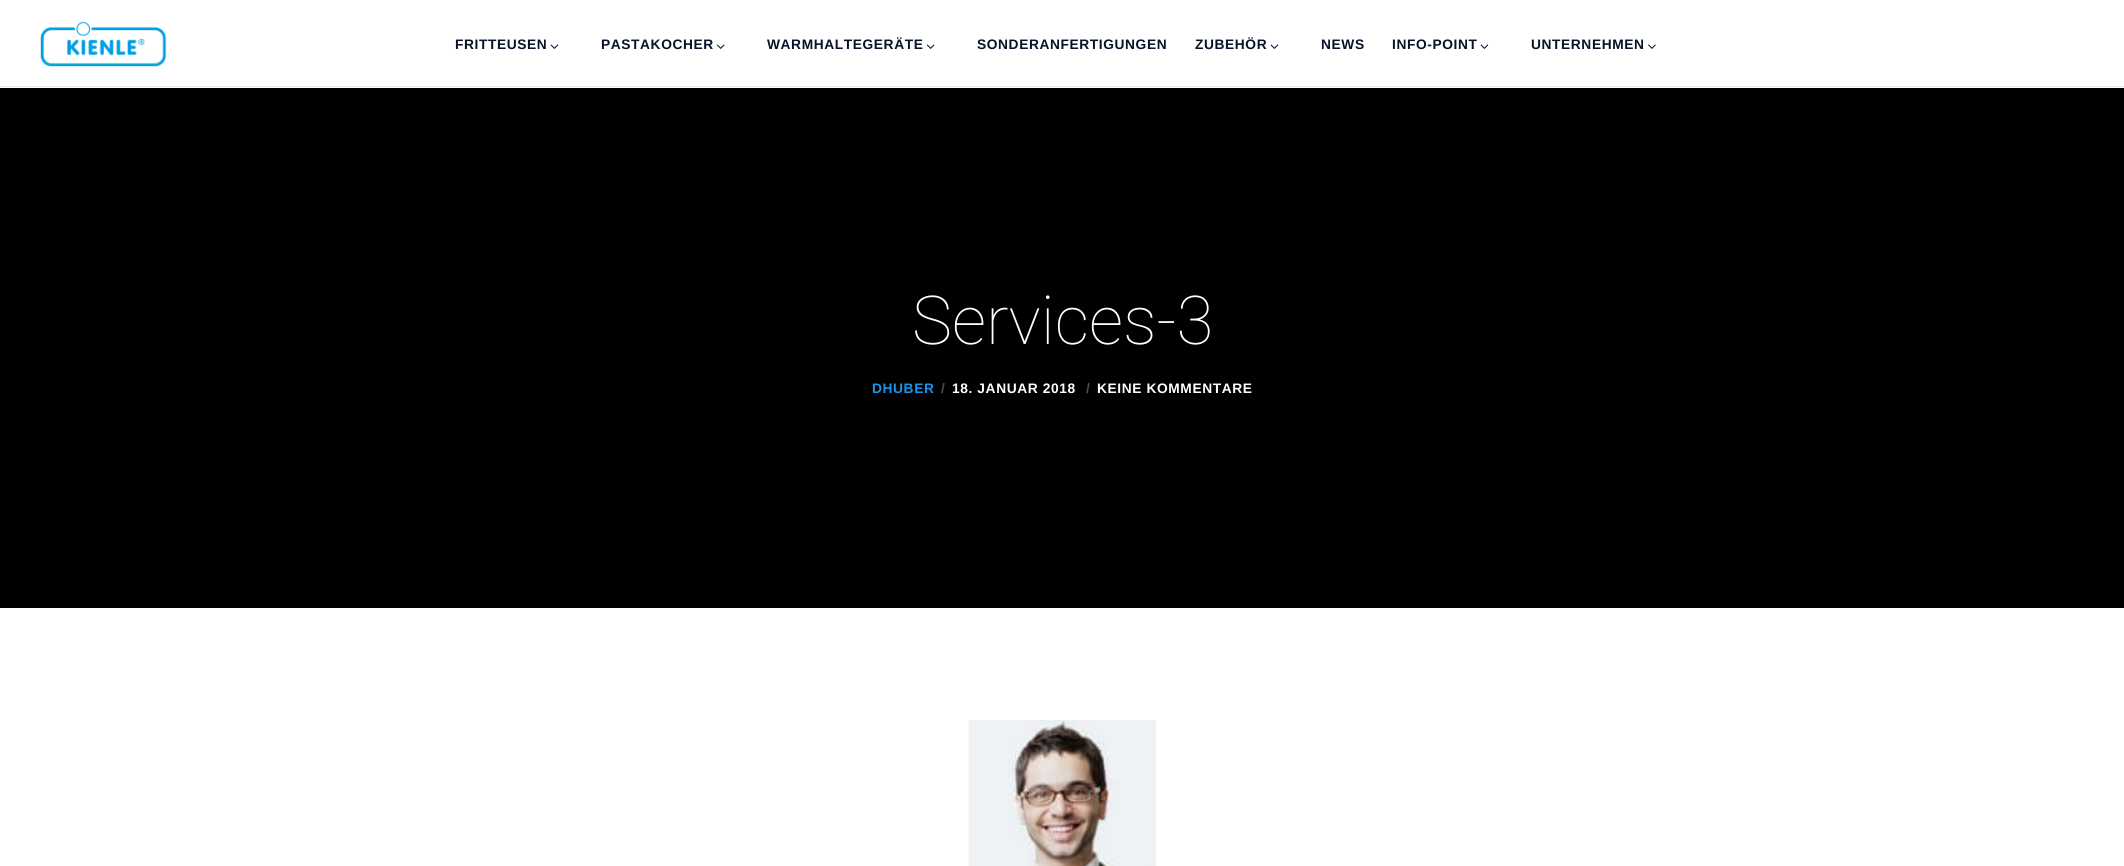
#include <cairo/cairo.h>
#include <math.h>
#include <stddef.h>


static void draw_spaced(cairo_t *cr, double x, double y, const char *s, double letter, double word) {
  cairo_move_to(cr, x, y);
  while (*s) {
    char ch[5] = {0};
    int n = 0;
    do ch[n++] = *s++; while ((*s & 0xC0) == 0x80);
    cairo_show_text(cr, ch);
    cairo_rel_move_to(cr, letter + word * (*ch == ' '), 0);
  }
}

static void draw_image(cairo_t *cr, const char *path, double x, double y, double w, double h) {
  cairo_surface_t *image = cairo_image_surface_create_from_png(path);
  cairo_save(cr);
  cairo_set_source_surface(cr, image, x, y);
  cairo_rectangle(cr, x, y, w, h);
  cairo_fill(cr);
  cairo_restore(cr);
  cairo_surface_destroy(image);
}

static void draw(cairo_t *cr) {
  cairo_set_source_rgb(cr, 0, 0, 0);
  cairo_paint(cr);
  cairo_set_source_rgb(cr, 1, 1, 1);
  cairo_rectangle(cr, 0, 0, 2124, 88);
  cairo_fill(cr);
  cairo_set_source_rgb(cr, 230 / 255.0, 230 / 255.0, 230 / 255.0);
  cairo_rectangle(cr, 0, 86, 2124, 1);
  cairo_fill(cr);
  draw_image(cr, "images/1.png", 40, 21, 127, 46);
  draw_image(cr, "images/2.png", 550, 44, 9, 5);
  draw_image(cr, "images/3.png", 716, 44, 9, 5);
  draw_image(cr, "images/3.png", 926, 44, 9, 5);
  draw_image(cr, "images/2.png", 1270, 44, 9, 5);
  draw_image(cr, "images/2.png", 1480, 44, 9, 5);
  draw_image(cr, "images/4.png", 1648, 44, 8, 5);
  cairo_set_source_rgb(cr, 1, 1, 1);
  cairo_rectangle(cr, 0, 608, 2124, 258);
  cairo_fill(cr);
  draw_image(cr, "images/5.png", 968, 720, 189, 146);
  cairo_select_font_face(cr, "Arimo", CAIRO_FONT_SLANT_NORMAL, CAIRO_FONT_WEIGHT_BOLD);
  cairo_set_font_size(cr, 13.75);
  cairo_set_source_rgb(cr, 8 / 255.0, 18 / 255.0, 41 / 255.0);
  draw_spaced(cr, 455, 49, "FRITTEUSEN", 0.6, 0);
  draw_spaced(cr, 601, 49, "PASTAKOCHER", 0.6, 0);
  draw_spaced(cr, 767, 49, "WARMHALTEGERÄTE", 0.6, 0);
  draw_spaced(cr, 977, 49, "SONDERANFERTIGUNGEN", 0.6, 0);
  draw_spaced(cr, 1195, 49, "ZUBEHÖR", 0.6, 0);
  draw_spaced(cr, 1321, 49, "NEWS", 0.6, 0);
  draw_spaced(cr, 1392, 49, "INFO-POINT", 0.6, 0);
  draw_spaced(cr, 1531, 49, "UNTERNEHMEN", 0.6, 0);
  cairo_select_font_face(cr, "Roboto Thin", CAIRO_FONT_SLANT_NORMAL, CAIRO_FONT_WEIGHT_NORMAL);
  cairo_set_font_size(cr, 67.5);
  cairo_set_source_rgb(cr, 1, 1, 1);
  cairo_move_to(cr, 912, 344);
  cairo_show_text(cr, "Services-3");
  cairo_select_font_face(cr, "Arimo", CAIRO_FONT_SLANT_NORMAL, CAIRO_FONT_WEIGHT_BOLD);
  cairo_set_font_size(cr, 13.75);
  cairo_set_source_rgb(cr, 25 / 255.0, 148 / 255.0, 234 / 255.0);
  draw_spaced(cr, 872, 393, "DHUBER", 0.6, 0);
  cairo_set_source_rgb(cr, 77 / 255.0, 77 / 255.0, 77 / 255.0);
  draw_spaced(cr, 941, 393, "/", 0.6, 0);
  cairo_set_source_rgb(cr, 1, 1, 1);
  draw_spaced(cr, 952, 393, "18. JANUAR 2018", 0.6, 0);
  cairo_set_source_rgb(cr, 77 / 255.0, 77 / 255.0, 77 / 255.0);
  draw_spaced(cr, 1086, 393, "/", 0.6, 0);
  cairo_set_source_rgb(cr, 1, 1, 1);
  draw_spaced(cr, 1097, 393, "KEINE KOMMENTARE", 0.6, 0);
}

int main(void) {
  cairo_surface_t *surface = cairo_image_surface_create(CAIRO_FORMAT_RGB24, 2124, 866);
  cairo_t *cr = cairo_create(surface);
  cairo_font_options_t *options = cairo_font_options_create();
  cairo_font_options_set_hint_metrics(options, CAIRO_HINT_METRICS_OFF);
  cairo_font_options_set_hint_style(options, CAIRO_HINT_STYLE_NONE);
  cairo_set_font_options(cr, options);
  cairo_set_miter_limit(cr, 4);
  draw(cr);
  cairo_surface_write_to_png(surface, "out.png");
  cairo_font_options_destroy(options);
  cairo_destroy(cr);
  cairo_surface_destroy(surface);
  return 0;
}
